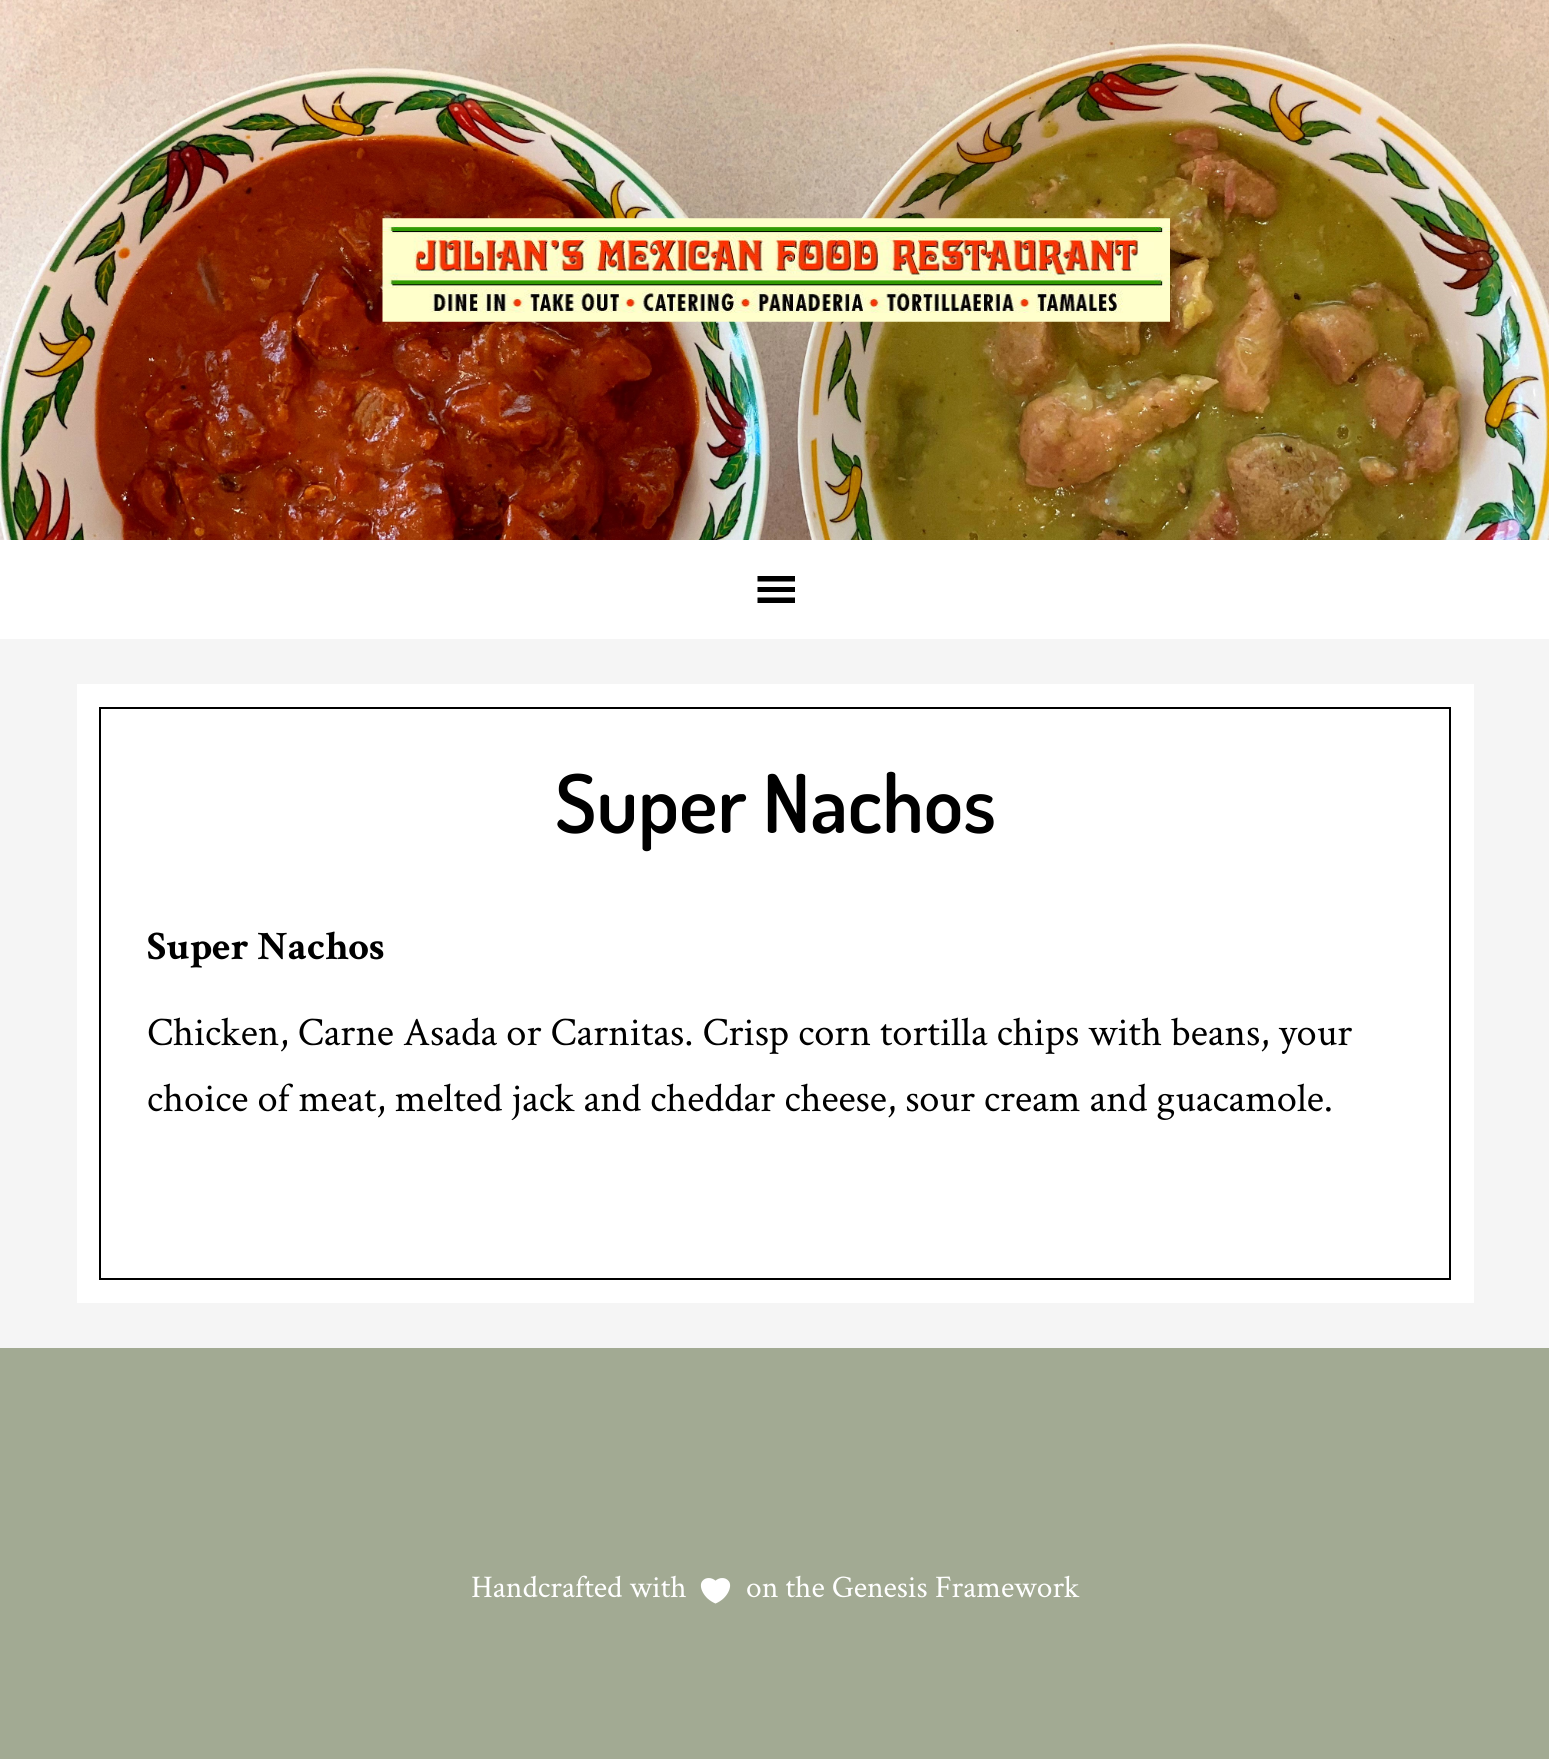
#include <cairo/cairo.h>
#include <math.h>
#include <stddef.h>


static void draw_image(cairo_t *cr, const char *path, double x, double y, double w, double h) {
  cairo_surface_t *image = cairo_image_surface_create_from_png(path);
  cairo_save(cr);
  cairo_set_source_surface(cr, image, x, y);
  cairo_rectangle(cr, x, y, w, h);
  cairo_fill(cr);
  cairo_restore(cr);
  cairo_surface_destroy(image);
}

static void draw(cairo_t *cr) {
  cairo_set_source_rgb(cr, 245 / 255.0, 245 / 255.0, 245 / 255.0);
  cairo_paint(cr);
  draw_image(cr, "images/1.png", 0, 0, 1549, 540);
  draw_image(cr, "images/2.png", 382, 218, 788, 104);
  cairo_set_source_rgb(cr, 1, 1, 1);
  cairo_rectangle(cr, 0, 540, 1549, 99);
  cairo_fill(cr);
  cairo_set_source_rgb(cr, 0, 0, 0);
  cairo_new_path(cr);
  cairo_move_to(cr, 757.5, 603);
  cairo_line_to(cr, 795, 603);
  cairo_line_to(cr, 795, 597.5);
  cairo_line_to(cr, 757.5, 597.5);
  cairo_close_path(cr);
  cairo_move_to(cr, 757.5, 576);
  cairo_line_to(cr, 757.5, 581.5);
  cairo_line_to(cr, 795, 581.5);
  cairo_line_to(cr, 795, 576);
  cairo_close_path(cr);
  cairo_move_to(cr, 757.5, 592);
  cairo_line_to(cr, 795, 592);
  cairo_line_to(cr, 795, 587);
  cairo_line_to(cr, 757.5, 587);
  cairo_close_path(cr);
  cairo_fill(cr);
  cairo_rectangle(cr, 88.5, 695.5, 1374, 596);
  cairo_set_source_rgb(cr, 1, 1, 1);
  cairo_set_line_width(cr, 23);
  cairo_stroke(cr);
  cairo_rectangle(cr, 100, 708, 1350, 571);
  cairo_fill_preserve(cr);
  cairo_set_source_rgb(cr, 0, 0, 0);
  cairo_set_line_width(cr, 2);
  cairo_stroke(cr);
  cairo_set_source_rgb(cr, 162 / 255.0, 170 / 255.0, 147 / 255.0);
  cairo_rectangle(cr, 0, 1348, 1549, 411);
  cairo_fill(cr);
  draw_image(cr, "images/3.png", 700, 1578, 31, 26);
  cairo_select_font_face(cr, "Dosis SemiBold", CAIRO_FONT_SLANT_NORMAL, CAIRO_FONT_WEIGHT_NORMAL);
  cairo_set_font_size(cr, 81);
  cairo_set_source_rgb(cr, 0, 0, 0);
  cairo_move_to(cr, 555, 833);
  cairo_show_text(cr, "Super Nachos");
  cairo_select_font_face(cr, "Crimson Text", CAIRO_FONT_SLANT_NORMAL, CAIRO_FONT_WEIGHT_BOLD);
  cairo_set_font_size(cr, 40.5);
  cairo_move_to(cr, 147, 959);
  cairo_show_text(cr, "Super Nachos");
  cairo_select_font_face(cr, "Crimson Text", CAIRO_FONT_SLANT_NORMAL, CAIRO_FONT_WEIGHT_NORMAL);
  cairo_move_to(cr, 147, 1045);
  cairo_show_text(cr, "Chicken, Carne Asada or Carnitas. Crisp corn tortilla chips with beans, your");
  cairo_move_to(cr, 147, 1111);
  cairo_show_text(cr, "choice of meat, melted jack and cheddar cheese, sour cream and guacamole.");
  cairo_set_font_size(cr, 31.5);
  cairo_set_source_rgb(cr, 1, 1, 1);
  cairo_move_to(cr, 471, 1597);
  cairo_show_text(cr, "Handcrafted with");
  cairo_move_to(cr, 746, 1597);
  cairo_show_text(cr, "on the Genesis Framework");
}

int main(void) {
  cairo_surface_t *surface = cairo_image_surface_create(CAIRO_FORMAT_RGB24, 1549, 1759);
  cairo_t *cr = cairo_create(surface);
  cairo_font_options_t *options = cairo_font_options_create();
  cairo_font_options_set_hint_metrics(options, CAIRO_HINT_METRICS_OFF);
  cairo_font_options_set_hint_style(options, CAIRO_HINT_STYLE_NONE);
  cairo_set_font_options(cr, options);
  cairo_set_miter_limit(cr, 4);
  draw(cr);
  cairo_surface_write_to_png(surface, "out.png");
  cairo_font_options_destroy(options);
  cairo_destroy(cr);
  cairo_surface_destroy(surface);
  return 0;
}
